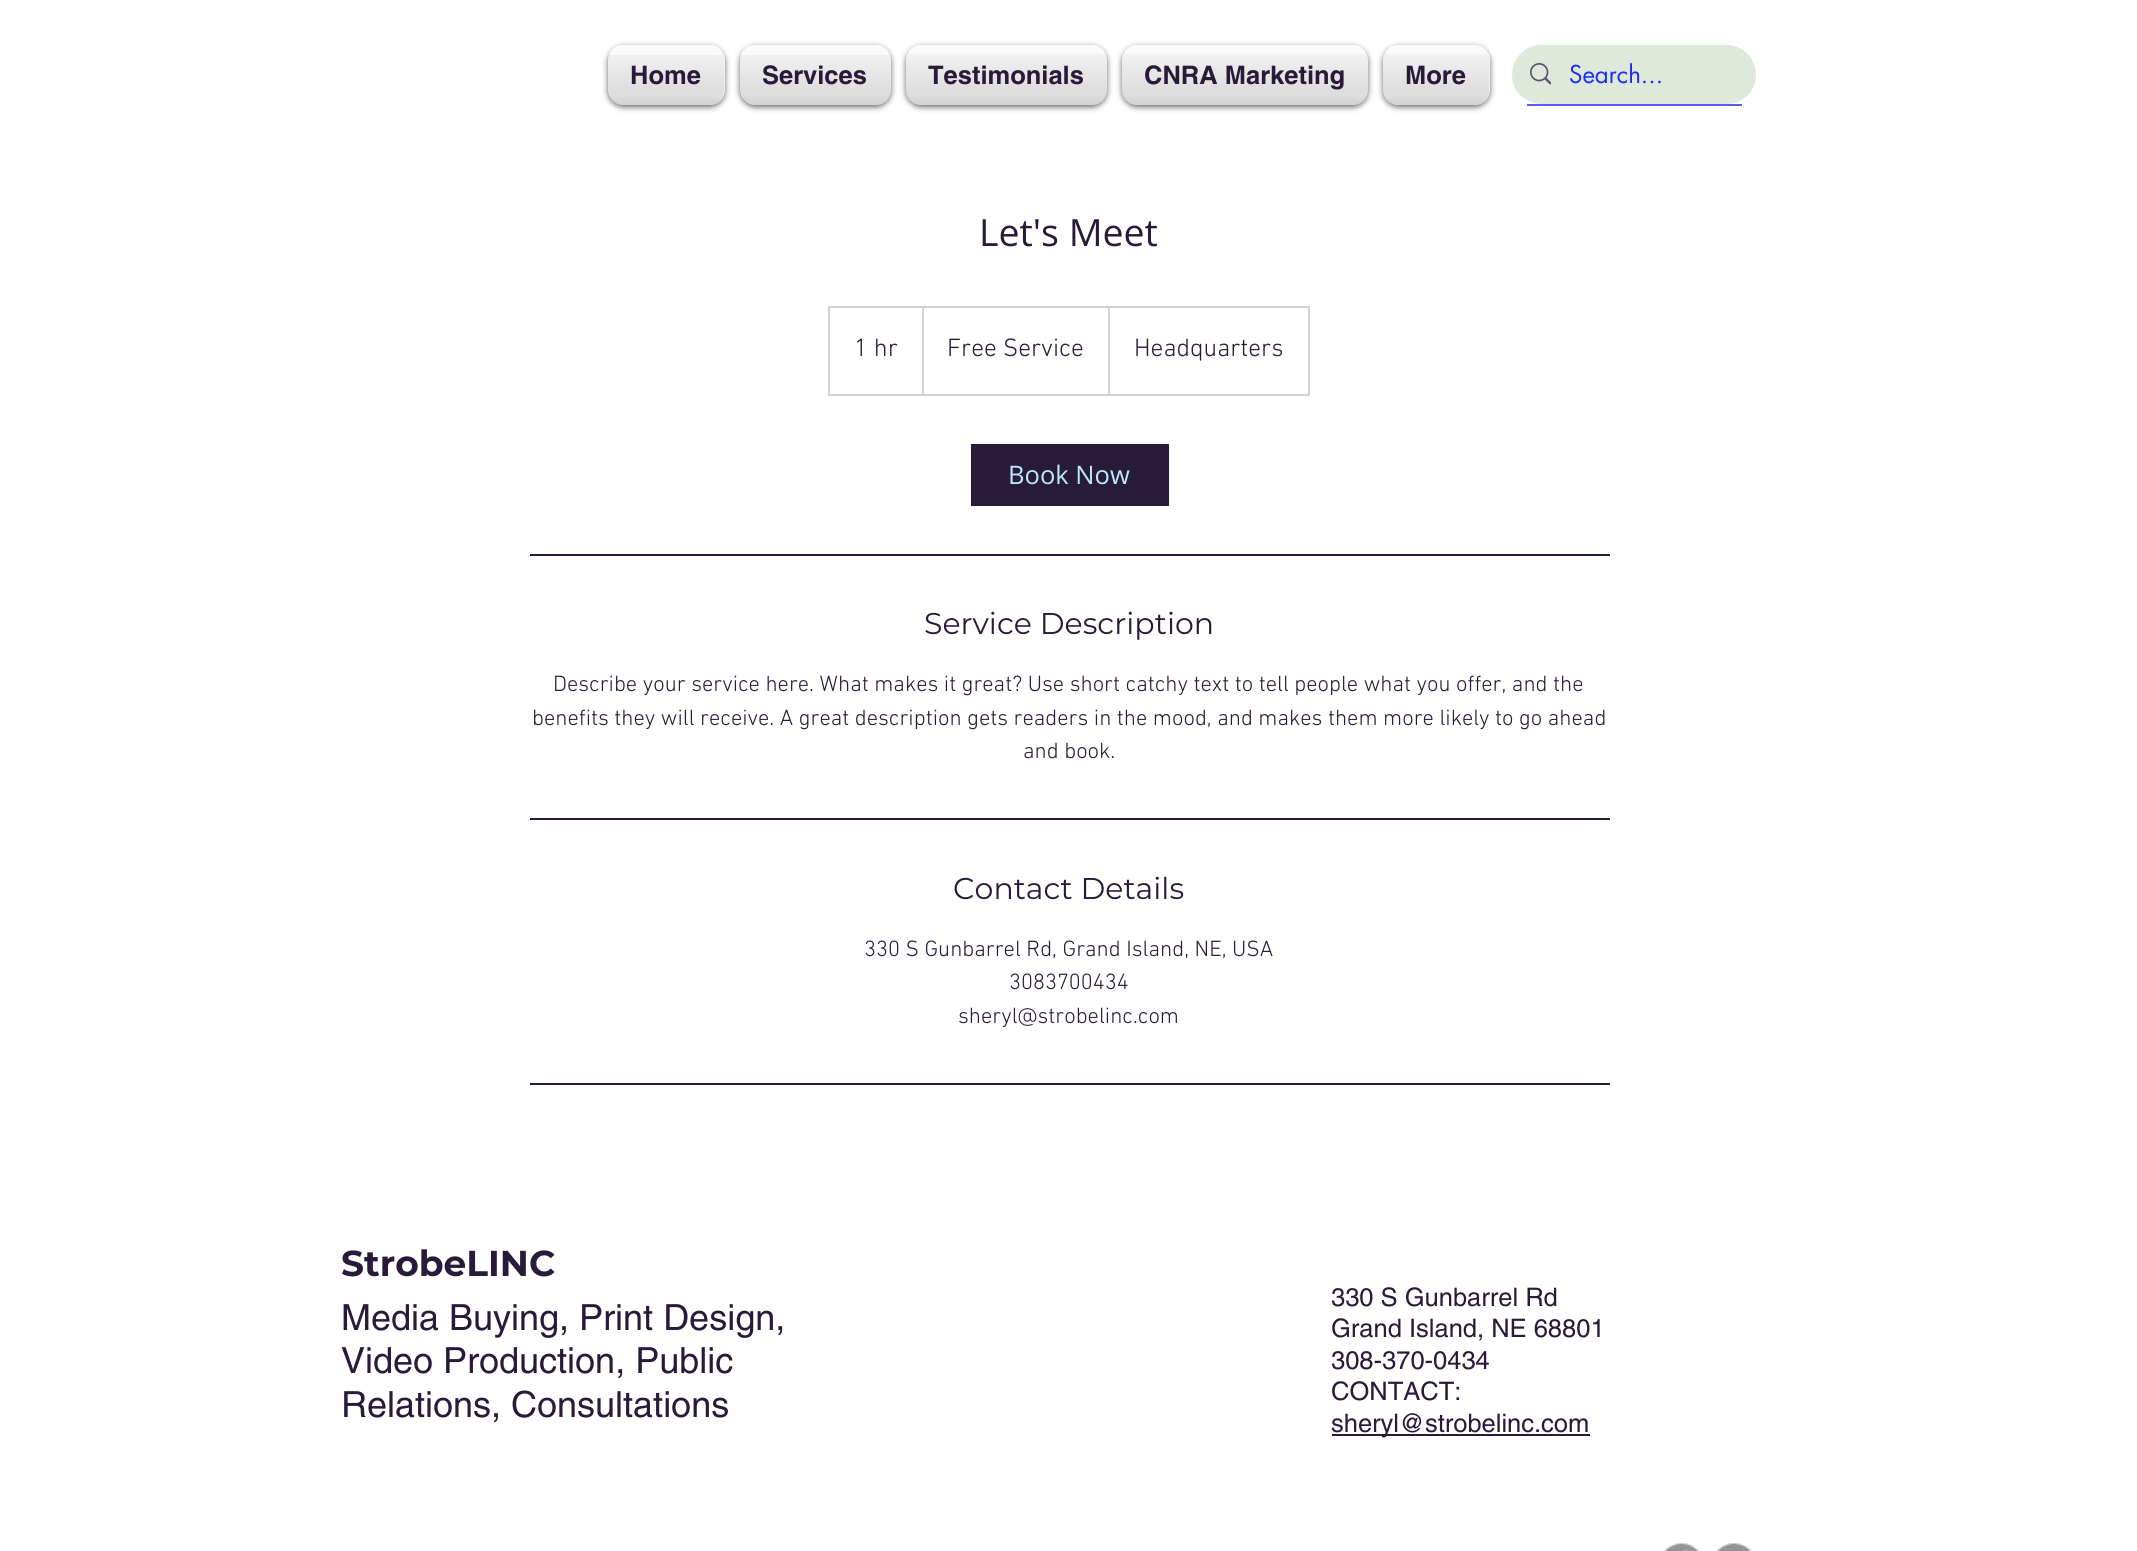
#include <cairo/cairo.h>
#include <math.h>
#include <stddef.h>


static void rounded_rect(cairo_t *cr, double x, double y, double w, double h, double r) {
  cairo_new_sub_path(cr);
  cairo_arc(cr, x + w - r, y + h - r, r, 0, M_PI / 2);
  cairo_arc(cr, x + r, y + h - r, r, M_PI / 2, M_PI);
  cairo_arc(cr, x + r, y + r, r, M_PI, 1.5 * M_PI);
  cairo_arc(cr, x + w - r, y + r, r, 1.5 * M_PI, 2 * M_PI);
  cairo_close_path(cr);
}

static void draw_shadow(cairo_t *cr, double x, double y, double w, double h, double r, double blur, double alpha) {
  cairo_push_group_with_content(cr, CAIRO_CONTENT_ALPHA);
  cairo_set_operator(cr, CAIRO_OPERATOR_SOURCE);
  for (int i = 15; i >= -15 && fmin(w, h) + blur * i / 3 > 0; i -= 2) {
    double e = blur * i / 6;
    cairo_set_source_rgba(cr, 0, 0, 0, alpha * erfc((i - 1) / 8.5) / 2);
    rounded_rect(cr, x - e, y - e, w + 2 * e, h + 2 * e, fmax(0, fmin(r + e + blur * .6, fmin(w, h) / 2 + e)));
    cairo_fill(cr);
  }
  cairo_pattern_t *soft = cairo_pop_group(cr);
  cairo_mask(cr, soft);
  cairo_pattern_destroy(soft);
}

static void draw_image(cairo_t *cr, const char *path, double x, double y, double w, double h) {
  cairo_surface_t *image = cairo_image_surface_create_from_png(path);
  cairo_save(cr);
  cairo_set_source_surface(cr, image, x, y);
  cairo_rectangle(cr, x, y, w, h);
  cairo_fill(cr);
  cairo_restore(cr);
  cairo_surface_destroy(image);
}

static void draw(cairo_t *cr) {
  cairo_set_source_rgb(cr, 1, 1, 1);
  cairo_paint(cr);
  cairo_set_source_rgb(cr, 0, 0, 0);
  draw_shadow(cr, 608, 47, 117, 60, 15, 3, 0.6);
  cairo_set_source_rgb(cr, 246 / 255.0, 246 / 255.0, 246 / 255.0);
  rounded_rect(cr, 608, 45, 117, 60, 15);
  cairo_fill(cr);
  draw_image(cr, "images/1.png", 608, 45, 114, 10);
  draw_image(cr, "images/2.png", 607, 55, 118, 50);
  cairo_set_source_rgb(cr, 0, 0, 0);
  draw_shadow(cr, 740, 47, 151, 60, 15, 3, 0.6);
  cairo_set_source_rgb(cr, 246 / 255.0, 246 / 255.0, 246 / 255.0);
  rounded_rect(cr, 740, 45, 151, 60, 15);
  cairo_fill(cr);
  draw_image(cr, "images/3.png", 740, 45, 148, 10);
  draw_image(cr, "images/4.png", 739, 55, 152, 50);
  cairo_set_source_rgb(cr, 0, 0, 0);
  draw_shadow(cr, 906, 47, 201, 60, 15, 3, 0.6);
  cairo_set_source_rgb(cr, 246 / 255.0, 246 / 255.0, 246 / 255.0);
  rounded_rect(cr, 906, 45, 201, 60, 15);
  cairo_fill(cr);
  draw_image(cr, "images/5.png", 909, 45, 195, 8);
  draw_image(cr, "images/6.png", 906, 55, 201, 50);
  cairo_set_source_rgb(cr, 0, 0, 0);
  draw_shadow(cr, 1122, 47, 246, 60, 15, 3, 0.6);
  cairo_set_source_rgb(cr, 246 / 255.0, 246 / 255.0, 246 / 255.0);
  rounded_rect(cr, 1122, 45, 246, 60, 15);
  cairo_fill(cr);
  draw_image(cr, "images/7.png", 1125, 45, 240, 8);
  draw_image(cr, "images/8.png", 1122, 55, 246, 50);
  cairo_set_source_rgb(cr, 0, 0, 0);
  draw_shadow(cr, 1383, 47, 107, 60, 15, 3, 0.6);
  cairo_set_source_rgb(cr, 246 / 255.0, 246 / 255.0, 246 / 255.0);
  rounded_rect(cr, 1383, 45, 107, 60, 15);
  cairo_fill(cr);
  draw_image(cr, "images/9.png", 1386, 45, 101, 8);
  draw_image(cr, "images/10.png", 1383, 55, 107, 50);
  cairo_set_source_rgb(cr, 83 / 255.0, 92 / 255.0, 246 / 255.0);
  cairo_rectangle(cr, 1527, 104, 215, 2);
  cairo_fill(cr);
  cairo_set_source_rgb(cr, 222 / 255.0, 233 / 255.0, 220 / 255.0);
  cairo_new_path(cr);
  cairo_move_to(cr, 1542, 45);
  cairo_curve_to(cr, 1525, 45, 1512, 58, 1512, 75);
  cairo_curve_to(cr, 1512, 91, 1525, 104, 1542, 104);
  cairo_line_to(cr, 1726, 104);
  cairo_curve_to(cr, 1743, 104, 1756, 91, 1756, 75);
  cairo_curve_to(cr, 1756, 58, 1743, 45, 1726, 45);
  cairo_close_path(cr);
  cairo_fill(cr);
  draw_image(cr, "images/11.png", 1530, 63, 21, 22);
  cairo_rectangle(cr, 829, 307, 480, 88);
  cairo_set_source_rgb(cr, 212 / 255.0, 209 / 255.0, 215 / 255.0);
  cairo_stroke(cr);
  cairo_save(cr);
  cairo_rectangle(cr, 830, 308, 478, 87);
  cairo_clip(cr);
  cairo_new_path(cr);
  cairo_move_to(cr, 922, 394);
  cairo_line_to(cr, 922, 306);
  cairo_line_to(cr, 924, 308);
  cairo_line_to(cr, 924, 394);
  cairo_close_path(cr);
  cairo_fill(cr);
  cairo_new_path(cr);
  cairo_move_to(cr, 1108, 394);
  cairo_line_to(cr, 1108, 306);
  cairo_line_to(cr, 1110, 308);
  cairo_line_to(cr, 1110, 394);
  cairo_close_path(cr);
  cairo_fill(cr);
  cairo_restore(cr);
  cairo_set_source_rgb(cr, 40 / 255.0, 26 / 255.0, 57 / 255.0);
  cairo_rectangle(cr, 971, 444, 198, 62);
  cairo_fill(cr);
  cairo_rectangle(cr, 530, 554, 1080, 2);
  cairo_fill(cr);
  cairo_rectangle(cr, 530, 818, 1080, 2);
  cairo_fill(cr);
  cairo_rectangle(cr, 530, 1083, 1080, 2);
  cairo_fill(cr);
  cairo_rectangle(cr, 1332, 1434, 258, 2);
  cairo_fill(cr);
  draw_image(cr, "images/12.png", 1664, 1543, 35, 8);
  draw_image(cr, "images/13.png", 1716, 1543, 36, 8);
  cairo_select_font_face(cr, "helvetica", CAIRO_FONT_SLANT_NORMAL, CAIRO_FONT_WEIGHT_BOLD);
  cairo_set_font_size(cr, 25.5);
  cairo_move_to(cr, 630, 84);
  cairo_show_text(cr, "Home");
  cairo_move_to(cr, 762, 84);
  cairo_show_text(cr, "Services");
  cairo_move_to(cr, 928, 84);
  cairo_show_text(cr, "Testimonials");
  cairo_move_to(cr, 1144, 84);
  cairo_show_text(cr, "CNRA Marketing");
  cairo_move_to(cr, 1405, 84);
  cairo_show_text(cr, "More");
  cairo_select_font_face(cr, "futura", CAIRO_FONT_SLANT_NORMAL, CAIRO_FONT_WEIGHT_NORMAL);
  cairo_set_font_size(cr, 24);
  cairo_set_source_rgb(cr, 31 / 255.0, 43 / 255.0, 243 / 255.0);
  cairo_move_to(cr, 1569, 83);
  cairo_show_text(cr, "Search...");
  cairo_select_font_face(cr, "Open Sans", CAIRO_FONT_SLANT_NORMAL, CAIRO_FONT_WEIGHT_NORMAL);
  cairo_set_font_size(cr, 37.5);
  cairo_set_source_rgb(cr, 40 / 255.0, 26 / 255.0, 57 / 255.0);
  cairo_move_to(cr, 979, 246);
  cairo_show_text(cr, "Let's Meet");
  cairo_select_font_face(cr, "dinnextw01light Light", CAIRO_FONT_SLANT_NORMAL, CAIRO_FONT_WEIGHT_NORMAL);
  cairo_set_font_size(cr, 25.5);
  cairo_move_to(cr, 854, 356);
  cairo_show_text(cr, "1 hr");
  cairo_move_to(cr, 947, 356);
  cairo_show_text(cr, "Free Service");
  cairo_move_to(cr, 1134, 356);
  cairo_show_text(cr, "Headquarters");
  cairo_select_font_face(cr, "Open Sans", CAIRO_FONT_SLANT_NORMAL, CAIRO_FONT_WEIGHT_NORMAL);
  cairo_set_source_rgb(cr, 189 / 255.0, 233 / 255.0, 251 / 255.0);
  cairo_move_to(cr, 1008, 484);
  cairo_show_text(cr, "Book Now");
  cairo_select_font_face(cr, "Montserrat", CAIRO_FONT_SLANT_NORMAL, CAIRO_FONT_WEIGHT_NORMAL);
  cairo_set_font_size(cr, 30);
  cairo_set_source_rgb(cr, 40 / 255.0, 26 / 255.0, 57 / 255.0);
  cairo_move_to(cr, 924, 634);
  cairo_show_text(cr, "Service Description");
  cairo_select_font_face(cr, "dinnextw01light Light", CAIRO_FONT_SLANT_NORMAL, CAIRO_FONT_WEIGHT_NORMAL);
  cairo_set_font_size(cr, 22.5);
  cairo_move_to(cr, 553, 691);
  cairo_show_text(cr, "Describe your service here. What makes it great? Use short catchy text to tell people what you offer, and the");
  cairo_move_to(cr, 532, 725);
  cairo_show_text(cr, "benefits they will receive. A great description gets readers in the mood, and makes them more likely to go ahead");
  cairo_move_to(cr, 1023, 758);
  cairo_show_text(cr, "and book.");
  cairo_select_font_face(cr, "Montserrat", CAIRO_FONT_SLANT_NORMAL, CAIRO_FONT_WEIGHT_NORMAL);
  cairo_set_font_size(cr, 30);
  cairo_move_to(cr, 953, 899);
  cairo_show_text(cr, "Contact Details");
  cairo_select_font_face(cr, "dinnextw01light Light", CAIRO_FONT_SLANT_NORMAL, CAIRO_FONT_WEIGHT_NORMAL);
  cairo_set_font_size(cr, 22.5);
  cairo_move_to(cr, 864, 956);
  cairo_show_text(cr, "330 S Gunbarrel Rd, Grand Island, NE, USA");
  cairo_move_to(cr, 1009, 989);
  cairo_show_text(cr, "3083700434");
  cairo_move_to(cr, 958, 1023);
  cairo_show_text(cr, "sheryl@strobelinc.com");
  cairo_select_font_face(cr, "Montserrat", CAIRO_FONT_SLANT_NORMAL, CAIRO_FONT_WEIGHT_BOLD);
  cairo_set_font_size(cr, 36);
  cairo_move_to(cr, 341, 1276);
  cairo_show_text(cr, "StrobeLINC");
  cairo_select_font_face(cr, "helvetica", CAIRO_FONT_SLANT_NORMAL, CAIRO_FONT_WEIGHT_NORMAL);
  cairo_move_to(cr, 341, 1330);
  cairo_show_text(cr, "Media Buying, Print Design,");
  cairo_move_to(cr, 341, 1373);
  cairo_show_text(cr, "Video Production, Public");
  cairo_move_to(cr, 341, 1417);
  cairo_show_text(cr, "Relations, Consultations");
  cairo_set_font_size(cr, 25.5);
  cairo_move_to(cr, 1331, 1306);
  cairo_show_text(cr, "330 S Gunbarrel Rd");
  cairo_move_to(cr, 1331, 1337);
  cairo_show_text(cr, "Grand Island, NE 68801");
  cairo_move_to(cr, 1331, 1369);
  cairo_show_text(cr, "308-370-0434");
  cairo_move_to(cr, 1331, 1400);
  cairo_show_text(cr, "CONTACT:");
  cairo_move_to(cr, 1331, 1432);
  cairo_show_text(cr, "sheryl@strobelinc.com");
}

int main(void) {
  cairo_surface_t *surface = cairo_image_surface_create(CAIRO_FORMAT_RGB24, 2137, 1551);
  cairo_t *cr = cairo_create(surface);
  cairo_font_options_t *options = cairo_font_options_create();
  cairo_font_options_set_hint_metrics(options, CAIRO_HINT_METRICS_OFF);
  cairo_font_options_set_hint_style(options, CAIRO_HINT_STYLE_NONE);
  cairo_set_font_options(cr, options);
  cairo_set_miter_limit(cr, 4);
  draw(cr);
  cairo_surface_write_to_png(surface, "out.png");
  cairo_font_options_destroy(options);
  cairo_destroy(cr);
  cairo_surface_destroy(surface);
  return 0;
}
